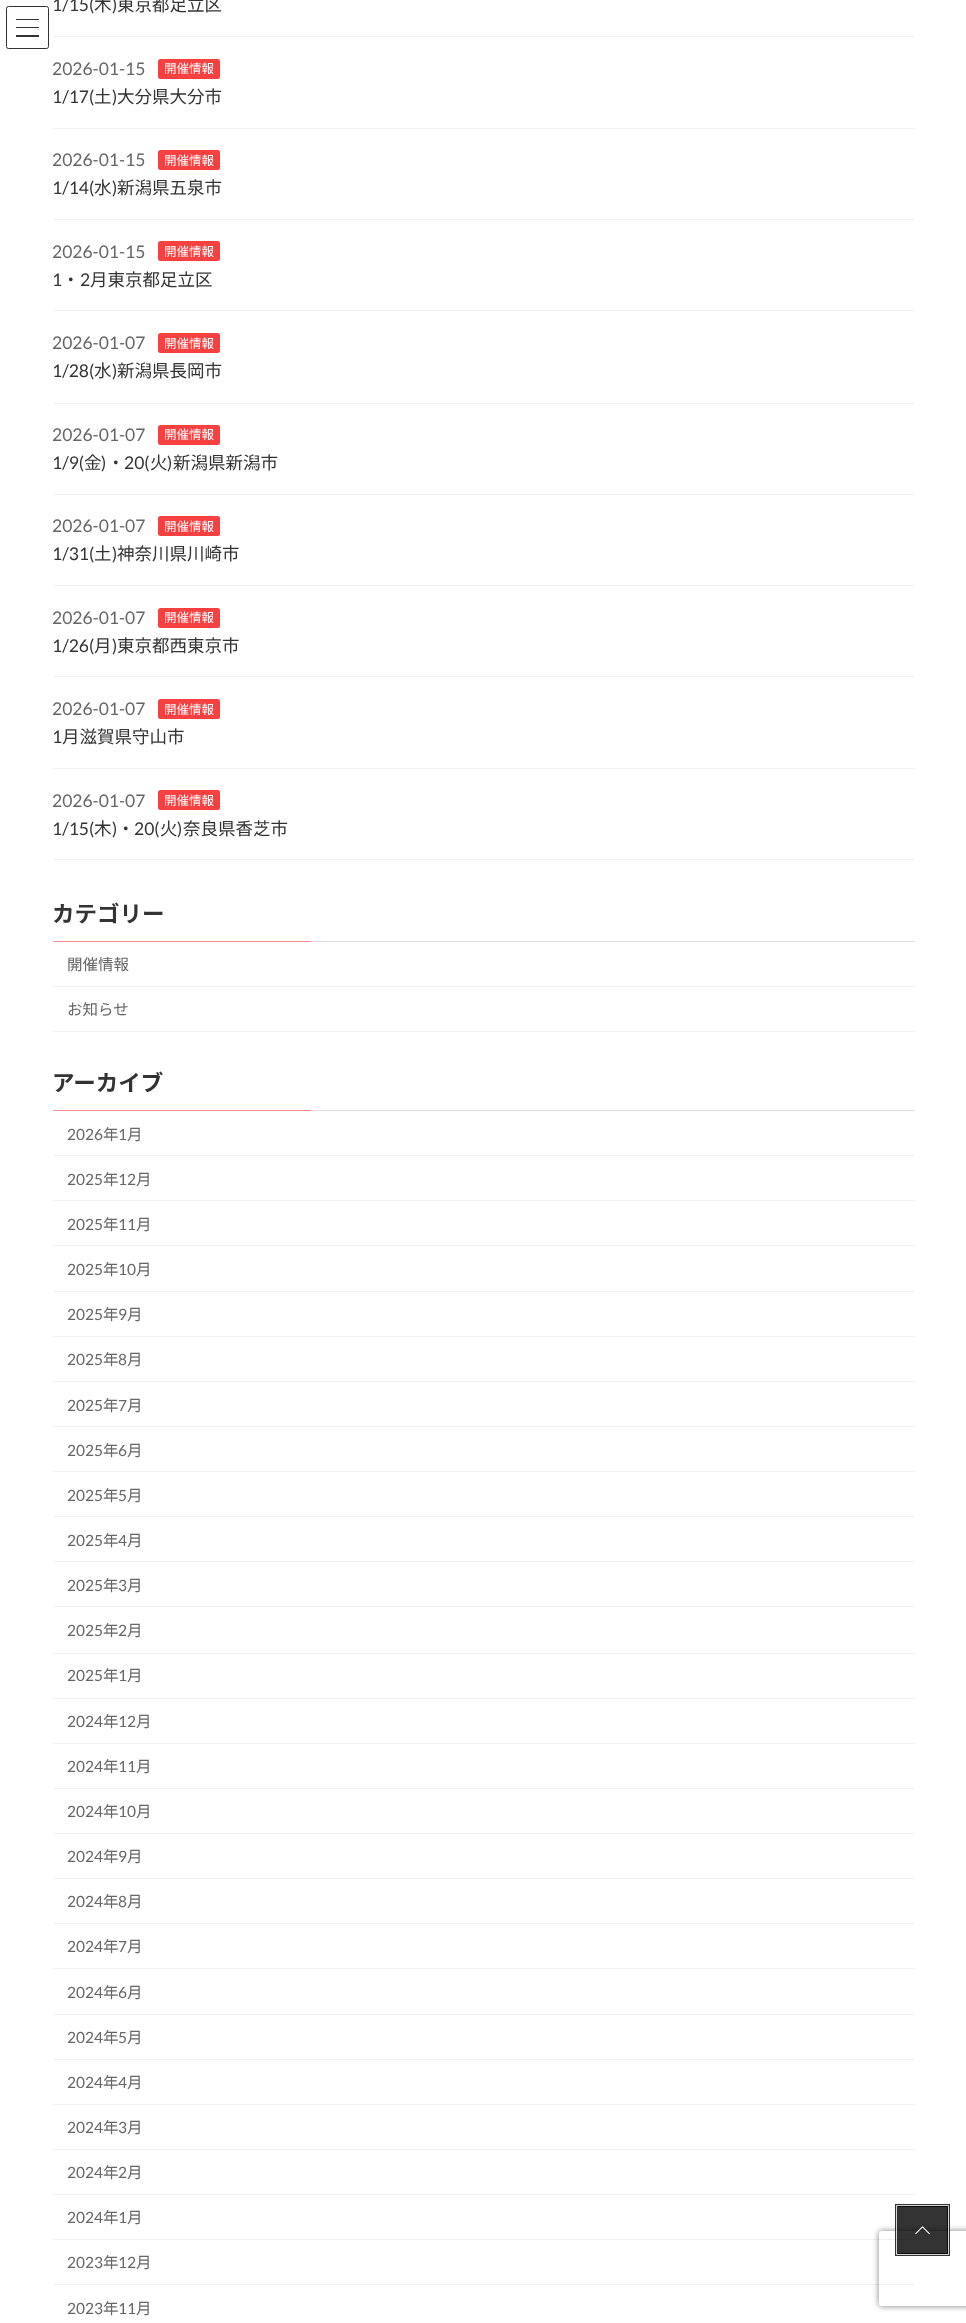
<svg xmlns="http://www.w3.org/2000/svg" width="966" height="2323">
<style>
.a{font:17.5px Lato;fill:#333}
.b{font:17.5px Noto Sans JP;fill:#333}
.c{font:17.5px Lato;fill:#666}
.d{font:12.5px Noto Sans JP;fill:#fff}
.e{font:bold 22.5px Noto Sans JP;fill:#333}
.f{font:15.5px Noto Sans JP;fill:#666}
.g{font:15.5px Lato;fill:#666}
</style>
<defs>
<clipPath id="clip1"><path d="M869 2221h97v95h-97zm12.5 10h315c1.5 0 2.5 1 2.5 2.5v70c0 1.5-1 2.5-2.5 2.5h-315c-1.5 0-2.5-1-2.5-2.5v-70c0-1.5 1-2.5 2.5-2.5z" clip-rule="evenodd"/></clipPath>
</defs>
<rect width="100%" height="100%" fill="#fff"/>
<path fill="#333" d="M16 19h23v1H16z"/>
<path fill="#333" d="M16 27h23v1H16z"/>
<path fill="#333" d="M16 35h23v2H16z"/>
<rect fill="none" stroke="#333" x="6.5" y="6.5" width="42" height="42" rx="2"/>
<path fill="#f0f0f0" d="M53 36h862v1H53z"/>
<path fill="#f0f0f0" d="M53 128h862v1H53z"/>
<rect fill="#f74040" x="158" y="59" width="62" height="20" rx="2.5"/>
<path fill="#f0f0f0" d="M53 219h862v1H53z"/>
<rect fill="#f74040" x="158" y="150" width="62" height="20" rx="2.5"/>
<path fill="#f0f0f0" d="M53 310h862v1H53z"/>
<rect fill="#f74040" x="158" y="241" width="62" height="20" rx="2.5"/>
<path fill="#f0f0f0" d="M53 403h862v1H53z"/>
<rect fill="#f74040" x="158" y="333" width="62" height="20" rx="2.5"/>
<path fill="#f0f0f0" d="M53 494h862v1H53z"/>
<rect fill="#f74040" x="158" y="425" width="62" height="20" rx="2.5"/>
<path fill="#f0f0f0" d="M53 585h862v1H53z"/>
<rect fill="#f74040" x="158" y="516" width="62" height="20" rx="2.5"/>
<path fill="#f0f0f0" d="M53 676h862v1H53z"/>
<rect fill="#f74040" x="158" y="608" width="62" height="20" rx="2.5"/>
<path fill="#f0f0f0" d="M53 768h862v1H53z"/>
<rect fill="#f74040" x="158" y="699" width="62" height="20" rx="2.5"/>
<path fill="#f0f0f0" d="M53 859h862v1H53z"/>
<rect fill="#f74040" x="158" y="790" width="62" height="20" rx="2.5"/>
<path fill="#e0e0e0" d="M311 941h604v1H311z"/>
<path fill="#fc8c8e" d="M53 941h258v1H53z"/>
<path fill="#f0f0f0" d="M53 986h862v1H53z"/>
<path fill="#f0f0f0" d="M53 1031h862v1H53z"/>
<path fill="#e0e0e0" d="M311 1110h604v1H311z"/>
<path fill="#fc8c8e" d="M53 1110h258v1H53z"/>
<path fill="#f0f0f0" d="M53 1155h862v1H53z"/>
<path fill="#f0f0f0" d="M53 1200h862v1H53z"/>
<path fill="#f0f0f0" d="M53 1245h862v1H53z"/>
<path fill="#f0f0f0" d="M53 1291h862v1H53z"/>
<path fill="#f0f0f0" d="M53 1336h862v1H53z"/>
<path fill="#f0f0f0" d="M53 1381h862v1H53z"/>
<path fill="#f0f0f0" d="M53 1426h862v1H53z"/>
<path fill="#f0f0f0" d="M53 1471h862v1H53z"/>
<path fill="#f0f0f0" d="M53 1516h862v1H53z"/>
<path fill="#f0f0f0" d="M53 1561h862v1H53z"/>
<path fill="#f0f0f0" d="M53 1606h862v1H53z"/>
<path fill="#f0f0f0" d="M53 1653h862v1H53z"/>
<path fill="#f0f0f0" d="M53 1698h862v1H53z"/>
<path fill="#f0f0f0" d="M53 1743h862v1H53z"/>
<path fill="#f0f0f0" d="M53 1788h862v1H53z"/>
<path fill="#f0f0f0" d="M53 1833h862v1H53z"/>
<path fill="#f0f0f0" d="M53 1878h862v1H53z"/>
<path fill="#f0f0f0" d="M53 1923h862v1H53z"/>
<path fill="#f0f0f0" d="M53 1968h862v1H53z"/>
<path fill="#f0f0f0" d="M53 2014h862v1H53z"/>
<path fill="#f0f0f0" d="M53 2059h862v1H53z"/>
<path fill="#f0f0f0" d="M53 2104h862v1H53z"/>
<path fill="#f0f0f0" d="M53 2149h862v1H53z"/>
<path fill="#f0f0f0" d="M53 2194h862v1H53z"/>
<path fill="#f0f0f0" d="M53 2239h862v1H53z"/>
<path fill="#f0f0f0" d="M53 2284h862v1H53z"/>
<g clip-path="url(#clip1)">
<rect fill="#808080" filter="blur(3px)" x="879" y="2231" width="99" height="75" rx="2.5"/>
</g>
<path fill="none" stroke="#000000cc" stroke-width="3" d="M896.5 2205.5h52v49H896.5z"/>
<path fill="none" stroke="#ffffffcc" d="M896.5 2205.5h52v49H896.5z"/>
<path fill="#000000cc" d="M898 2206h50v48H898z"/>
<image href="1.png" x="915" y="2226" width="15" height="9"/>
<text class="a" x="52" y="11">1/15(</text>
<text class="b" x="94" y="11">木</text>
<text class="a" x="112" y="11">)</text>
<text class="b" x="117" y="11">東京都足立区</text>
<text class="c" x="52" y="75">2026-01-15</text>
<text class="d" x="164" y="73">開催情報</text>
<text class="a" x="52" y="103">1/17(</text>
<text class="b" x="94" y="103">土</text>
<text class="a" x="112" y="103">)</text>
<text class="b" x="117" y="103">大分県大分市</text>
<text class="c" x="52" y="166">2026-01-15</text>
<text class="d" x="164" y="165">開催情報</text>
<text class="a" x="52" y="194">1/14(</text>
<text class="b" x="94" y="194">水</text>
<text class="a" x="112" y="194">)</text>
<text class="b" x="117" y="194">新潟県五泉市</text>
<text class="c" x="52" y="258">2026-01-15</text>
<text class="d" x="164" y="256">開催情報</text>
<text class="a" x="52" y="286">1</text>
<text class="b" x="62" y="286">・</text>
<text class="a" x="80" y="286">2</text>
<text class="b" x="90" y="286">月東京都足立区</text>
<text class="c" x="52" y="349">2026-01-07</text>
<text class="d" x="164" y="348">開催情報</text>
<text class="a" x="52" y="377">1/28(</text>
<text class="b" x="94" y="377">水</text>
<text class="a" x="112" y="377">)</text>
<text class="b" x="117" y="377">新潟県長岡市</text>
<text class="c" x="52" y="441">2026-01-07</text>
<text class="d" x="164" y="439">開催情報</text>
<text class="a" x="52" y="469">1/9(</text>
<text class="b" x="84" y="469">金</text>
<text class="a" x="101" y="469">)</text>
<text class="b" x="107" y="469">・</text>
<text class="a" x="124" y="469">20(</text>
<text class="b" x="150" y="469">火</text>
<text class="a" x="167" y="469">)</text>
<text class="b" x="173" y="469">新潟県新潟市</text>
<text class="c" x="52" y="532">2026-01-07</text>
<text class="d" x="164" y="531">開催情報</text>
<text class="a" x="52" y="560">1/31(</text>
<text class="b" x="94" y="560">土</text>
<text class="a" x="112" y="560">)</text>
<text class="b" x="117" y="560">神奈川県川崎市</text>
<text class="c" x="52" y="624">2026-01-07</text>
<text class="d" x="164" y="622">開催情報</text>
<text class="a" x="52" y="652">1/26(</text>
<text class="b" x="94" y="652">月</text>
<text class="a" x="112" y="652">)</text>
<text class="b" x="117" y="652">東京都西東京市</text>
<text class="c" x="52" y="715">2026-01-07</text>
<text class="d" x="164" y="714">開催情報</text>
<text class="a" x="52" y="743">1</text>
<text class="b" x="62" y="743">月滋賀県守山市</text>
<text class="c" x="52" y="807">2026-01-07</text>
<text class="d" x="164" y="805">開催情報</text>
<text class="a" x="52" y="835">1/15(</text>
<text class="b" x="94" y="835">木</text>
<text class="a" x="112" y="835">)</text>
<text class="b" x="117" y="835">・</text>
<text class="a" x="134" y="835">20(</text>
<text class="b" x="160" y="835">火</text>
<text class="a" x="177" y="835">)</text>
<text class="b" x="183" y="835">奈良県香芝市</text>
<text class="e" x="52" y="922">カテゴリー</text>
<text class="f" x="67" y="970">開催情報</text>
<text class="f" x="67" y="1015">お知らせ</text>
<text class="e" x="52" y="1091">アーカイブ</text>
<text class="g" x="67" y="1140">2026</text>
<text class="f" x="103" y="1140">年</text>
<text class="g" x="118" y="1140">1</text>
<text class="f" x="127" y="1140">月</text>
<text class="g" x="67" y="1185">2025</text>
<text class="f" x="103" y="1185">年</text>
<text class="g" x="118" y="1185">12</text>
<text class="f" x="136" y="1185">月</text>
<text class="g" x="67" y="1230">2025</text>
<text class="f" x="103" y="1230">年</text>
<text class="g" x="118" y="1230">11</text>
<text class="f" x="136" y="1230">月</text>
<text class="g" x="67" y="1275">2025</text>
<text class="f" x="103" y="1275">年</text>
<text class="g" x="118" y="1275">10</text>
<text class="f" x="136" y="1275">月</text>
<text class="g" x="67" y="1320">2025</text>
<text class="f" x="103" y="1320">年</text>
<text class="g" x="118" y="1320">9</text>
<text class="f" x="127" y="1320">月</text>
<text class="g" x="67" y="1365">2025</text>
<text class="f" x="103" y="1365">年</text>
<text class="g" x="118" y="1365">8</text>
<text class="f" x="127" y="1365">月</text>
<text class="g" x="67" y="1411">2025</text>
<text class="f" x="103" y="1411">年</text>
<text class="g" x="118" y="1411">7</text>
<text class="f" x="127" y="1411">月</text>
<text class="g" x="67" y="1456">2025</text>
<text class="f" x="103" y="1456">年</text>
<text class="g" x="118" y="1456">6</text>
<text class="f" x="127" y="1456">月</text>
<text class="g" x="67" y="1501">2025</text>
<text class="f" x="103" y="1501">年</text>
<text class="g" x="118" y="1501">5</text>
<text class="f" x="127" y="1501">月</text>
<text class="g" x="67" y="1546">2025</text>
<text class="f" x="103" y="1546">年</text>
<text class="g" x="118" y="1546">4</text>
<text class="f" x="127" y="1546">月</text>
<text class="g" x="67" y="1591">2025</text>
<text class="f" x="103" y="1591">年</text>
<text class="g" x="118" y="1591">3</text>
<text class="f" x="127" y="1591">月</text>
<text class="g" x="67" y="1636">2025</text>
<text class="f" x="103" y="1636">年</text>
<text class="g" x="118" y="1636">2</text>
<text class="f" x="127" y="1636">月</text>
<text class="g" x="67" y="1681">2025</text>
<text class="f" x="103" y="1681">年</text>
<text class="g" x="118" y="1681">1</text>
<text class="f" x="127" y="1681">月</text>
<text class="g" x="67" y="1727">2024</text>
<text class="f" x="103" y="1727">年</text>
<text class="g" x="118" y="1727">12</text>
<text class="f" x="136" y="1727">月</text>
<text class="g" x="67" y="1772">2024</text>
<text class="f" x="103" y="1772">年</text>
<text class="g" x="118" y="1772">11</text>
<text class="f" x="136" y="1772">月</text>
<text class="g" x="67" y="1817">2024</text>
<text class="f" x="103" y="1817">年</text>
<text class="g" x="118" y="1817">10</text>
<text class="f" x="136" y="1817">月</text>
<text class="g" x="67" y="1862">2024</text>
<text class="f" x="103" y="1862">年</text>
<text class="g" x="118" y="1862">9</text>
<text class="f" x="127" y="1862">月</text>
<text class="g" x="67" y="1907">2024</text>
<text class="f" x="103" y="1907">年</text>
<text class="g" x="118" y="1907">8</text>
<text class="f" x="127" y="1907">月</text>
<text class="g" x="67" y="1952">2024</text>
<text class="f" x="103" y="1952">年</text>
<text class="g" x="118" y="1952">7</text>
<text class="f" x="127" y="1952">月</text>
<text class="g" x="67" y="1998">2024</text>
<text class="f" x="103" y="1998">年</text>
<text class="g" x="118" y="1998">6</text>
<text class="f" x="127" y="1998">月</text>
<text class="g" x="67" y="2043">2024</text>
<text class="f" x="103" y="2043">年</text>
<text class="g" x="118" y="2043">5</text>
<text class="f" x="127" y="2043">月</text>
<text class="g" x="67" y="2088">2024</text>
<text class="f" x="103" y="2088">年</text>
<text class="g" x="118" y="2088">4</text>
<text class="f" x="127" y="2088">月</text>
<text class="g" x="67" y="2133">2024</text>
<text class="f" x="103" y="2133">年</text>
<text class="g" x="118" y="2133">3</text>
<text class="f" x="127" y="2133">月</text>
<text class="g" x="67" y="2178">2024</text>
<text class="f" x="103" y="2178">年</text>
<text class="g" x="118" y="2178">2</text>
<text class="f" x="127" y="2178">月</text>
<text class="g" x="67" y="2223">2024</text>
<text class="f" x="103" y="2223">年</text>
<text class="g" x="118" y="2223">1</text>
<text class="f" x="127" y="2223">月</text>
<text class="g" x="67" y="2268">2023</text>
<text class="f" x="103" y="2268">年</text>
<text class="g" x="118" y="2268">12</text>
<text class="f" x="136" y="2268">月</text>
<text class="g" x="67" y="2314">2023</text>
<text class="f" x="103" y="2314">年</text>
<text class="g" x="118" y="2314">11</text>
<text class="f" x="136" y="2314">月</text>
</svg>
